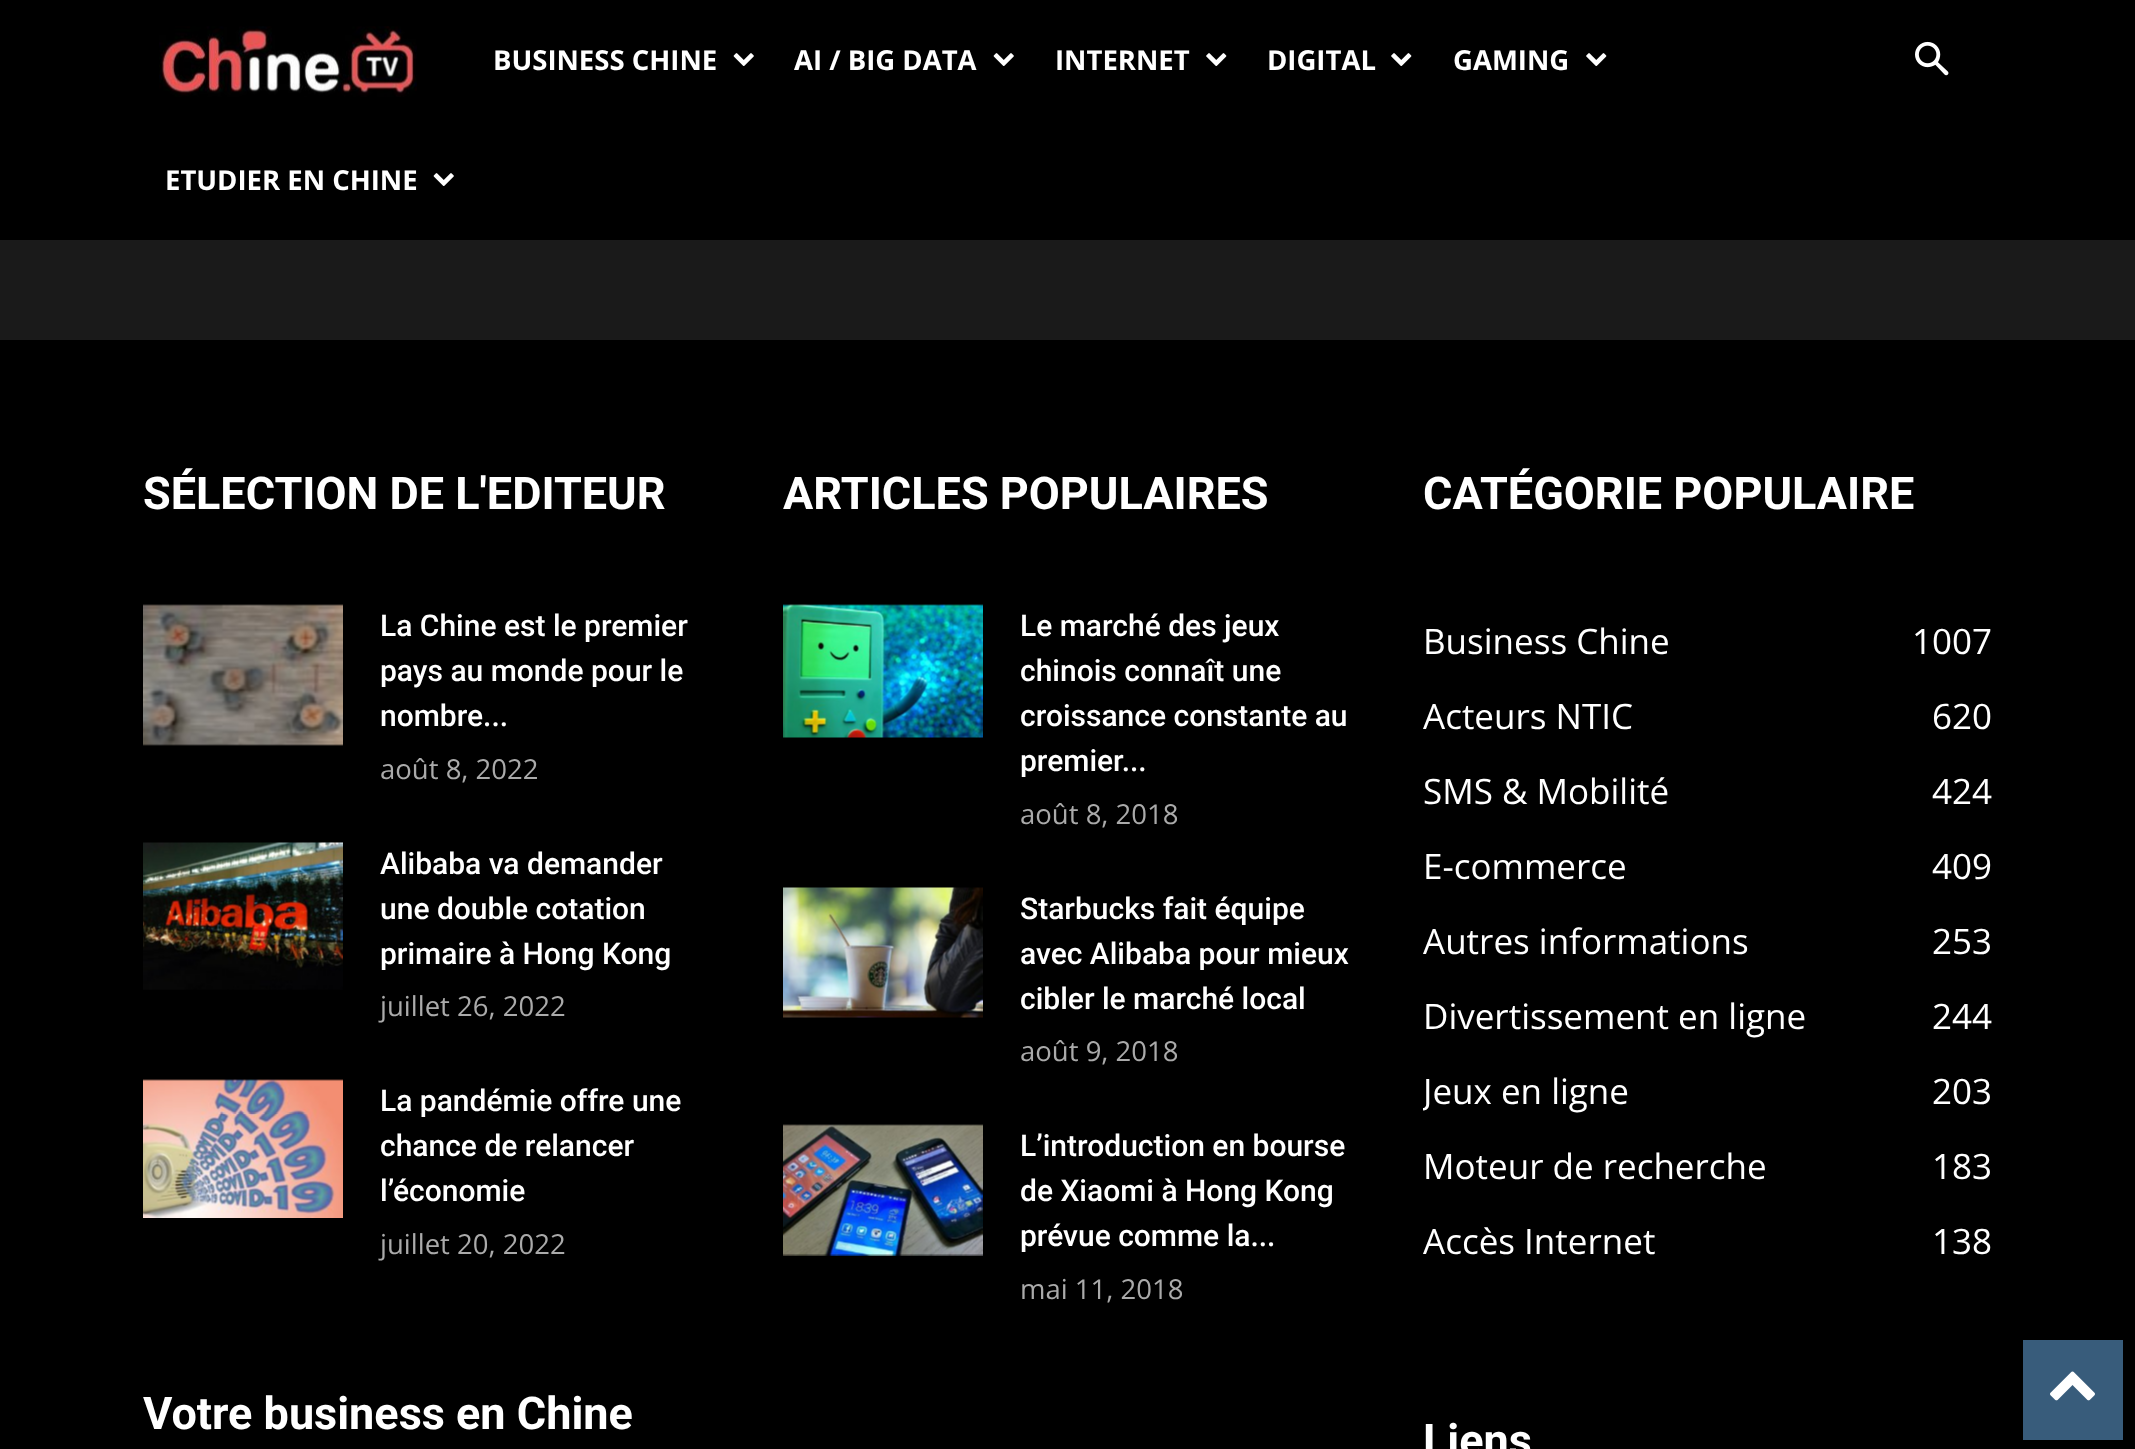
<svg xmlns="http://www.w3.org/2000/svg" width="2135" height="1449">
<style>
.a{font:bold 27.5px Open Sans;fill:#fff}
.b{font:bold 45px Roboto;fill:#fff}
.c{font:500 30px Roboto;fill:#fff}
.d{font:27.5px Open Sans;fill:#aaa}
.e{font:35px Open Sans;fill:#fff}
</style>
<defs>
<clipPath id="clip1"><path d="M1423 453h570v827H1423z"/></clipPath>
</defs>
<rect width="100%" height="100%" fill="#1a1a1a"/>
<path fill="#000" d="M0 0h2135v240H0z"/>
<image href="1.png" x="159" y="26" width="258" height="71"/>
<image href="2.png" x="733" y="53" width="21" height="13"/>
<image href="2.png" x="993" y="53" width="21" height="13"/>
<image href="3.png" x="1206" y="53" width="21" height="13"/>
<image href="3.png" x="1391" y="53" width="21" height="13"/>
<image href="3.png" x="1586" y="53" width="21" height="13"/>
<image href="2.png" x="433" y="173" width="21" height="13"/>
<image href="4.png" x="1915" y="41" width="34" height="35"/>
<path fill="#000" d="M0 340h2135v1109H0z"/>
<image href="5.png" x="143" y="604" width="200" height="142"/>
<image href="6.png" x="143" y="842" width="200" height="148"/>
<image href="7.png" x="143" y="1079" width="200" height="139"/>
<image href="8.png" x="783" y="604" width="200" height="134"/>
<image href="9.png" x="783" y="887" width="200" height="131"/>
<image href="10.png" x="783" y="1124" width="200" height="132"/>
<path fill="#385c7b" d="M2023 1340h100v100H2023z"/>
<image href="11.png" x="2050" y="1371" width="45" height="30"/>
<text class="a" x="493" y="70">BUSINESS CHINE</text>
<text class="a" x="794" y="70">AI / BIG DATA</text>
<text class="a" x="1055" y="70">INTERNET</text>
<text class="a" x="1267" y="70">DIGITAL</text>
<text class="a" x="1453" y="70">GAMING</text>
<text class="a" x="165" y="190">ETUDIER EN CHINE</text>
<text class="b" x="143" y="509">SÉLECTION DE L'EDITEUR</text>
<text class="c" x="380" y="636">La Chine est le premier</text>
<text class="c" x="380" y="681">pays au monde pour le</text>
<text class="c" x="380" y="726">nombre...</text>
<text class="d" x="380" y="779">août 8, 2022</text>
<text class="c" x="380" y="874">Alibaba va demander</text>
<text class="c" x="380" y="919">une double cotation</text>
<text class="c" x="380" y="964">primaire à Hong Kong</text>
<text class="d" x="380" y="1016">juillet 26, 2022</text>
<text class="c" x="380" y="1111">La pandémie offre une</text>
<text class="c" x="380" y="1156">chance de relancer</text>
<text class="c" x="380" y="1201">l’économie</text>
<text class="d" x="380" y="1254">juillet 20, 2022</text>
<text class="b" x="143" y="1429">Votre business en Chine</text>
<text class="b" x="783" y="509">ARTICLES POPULAIRES</text>
<text class="c" x="1020" y="636">Le marché des jeux</text>
<text class="c" x="1020" y="681">chinois connaît une</text>
<text class="c" x="1020" y="726">croissance constante au</text>
<text class="c" x="1020" y="771">premier...</text>
<text class="d" x="1020" y="824">août 8, 2018</text>
<text class="c" x="1020" y="919">Starbucks fait équipe</text>
<text class="c" x="1020" y="964">avec Alibaba pour mieux</text>
<text class="c" x="1020" y="1009">cibler le marché local</text>
<text class="d" x="1020" y="1061">août 9, 2018</text>
<text class="c" x="1020" y="1156">L’introduction en bourse</text>
<text class="c" x="1020" y="1201">de Xiaomi à Hong Kong</text>
<text class="c" x="1020" y="1246">prévue comme la...</text>
<text class="d" x="1020" y="1299">mai 11, 2018</text>
<text class="b" x="1423" y="509">CATÉGORIE POPULAIRE</text>
<text class="e" x="1423" y="654">Business Chine</text>
<text class="e" x="1912" y="654">1007</text>
<text class="e" x="1423" y="729">Acteurs NTIC</text>
<text class="e" x="1932" y="729">620</text>
<text class="e" x="1423" y="804">SMS &amp; Mobilité</text>
<text class="e" x="1932" y="804">424</text>
<text class="e" x="1423" y="879">E-commerce</text>
<text class="e" x="1932" y="879">409</text>
<text class="e" x="1423" y="954">Autres informations</text>
<text class="e" x="1932" y="954">253</text>
<text class="e" x="1423" y="1029">Divertissement en ligne</text>
<text class="e" x="1932" y="1029">244</text>
<g clip-path="url(#clip1)">
<text class="e" x="1423" y="1104">Jeux en ligne</text>
</g>
<text class="e" x="1932" y="1104">203</text>
<text class="e" x="1423" y="1179">Moteur de recherche</text>
<text class="e" x="1932" y="1179">183</text>
<text class="e" x="1423" y="1254">Accès Internet</text>
<text class="e" x="1932" y="1254">138</text>
<text class="b" x="1423" y="1456">Liens</text>
</svg>
